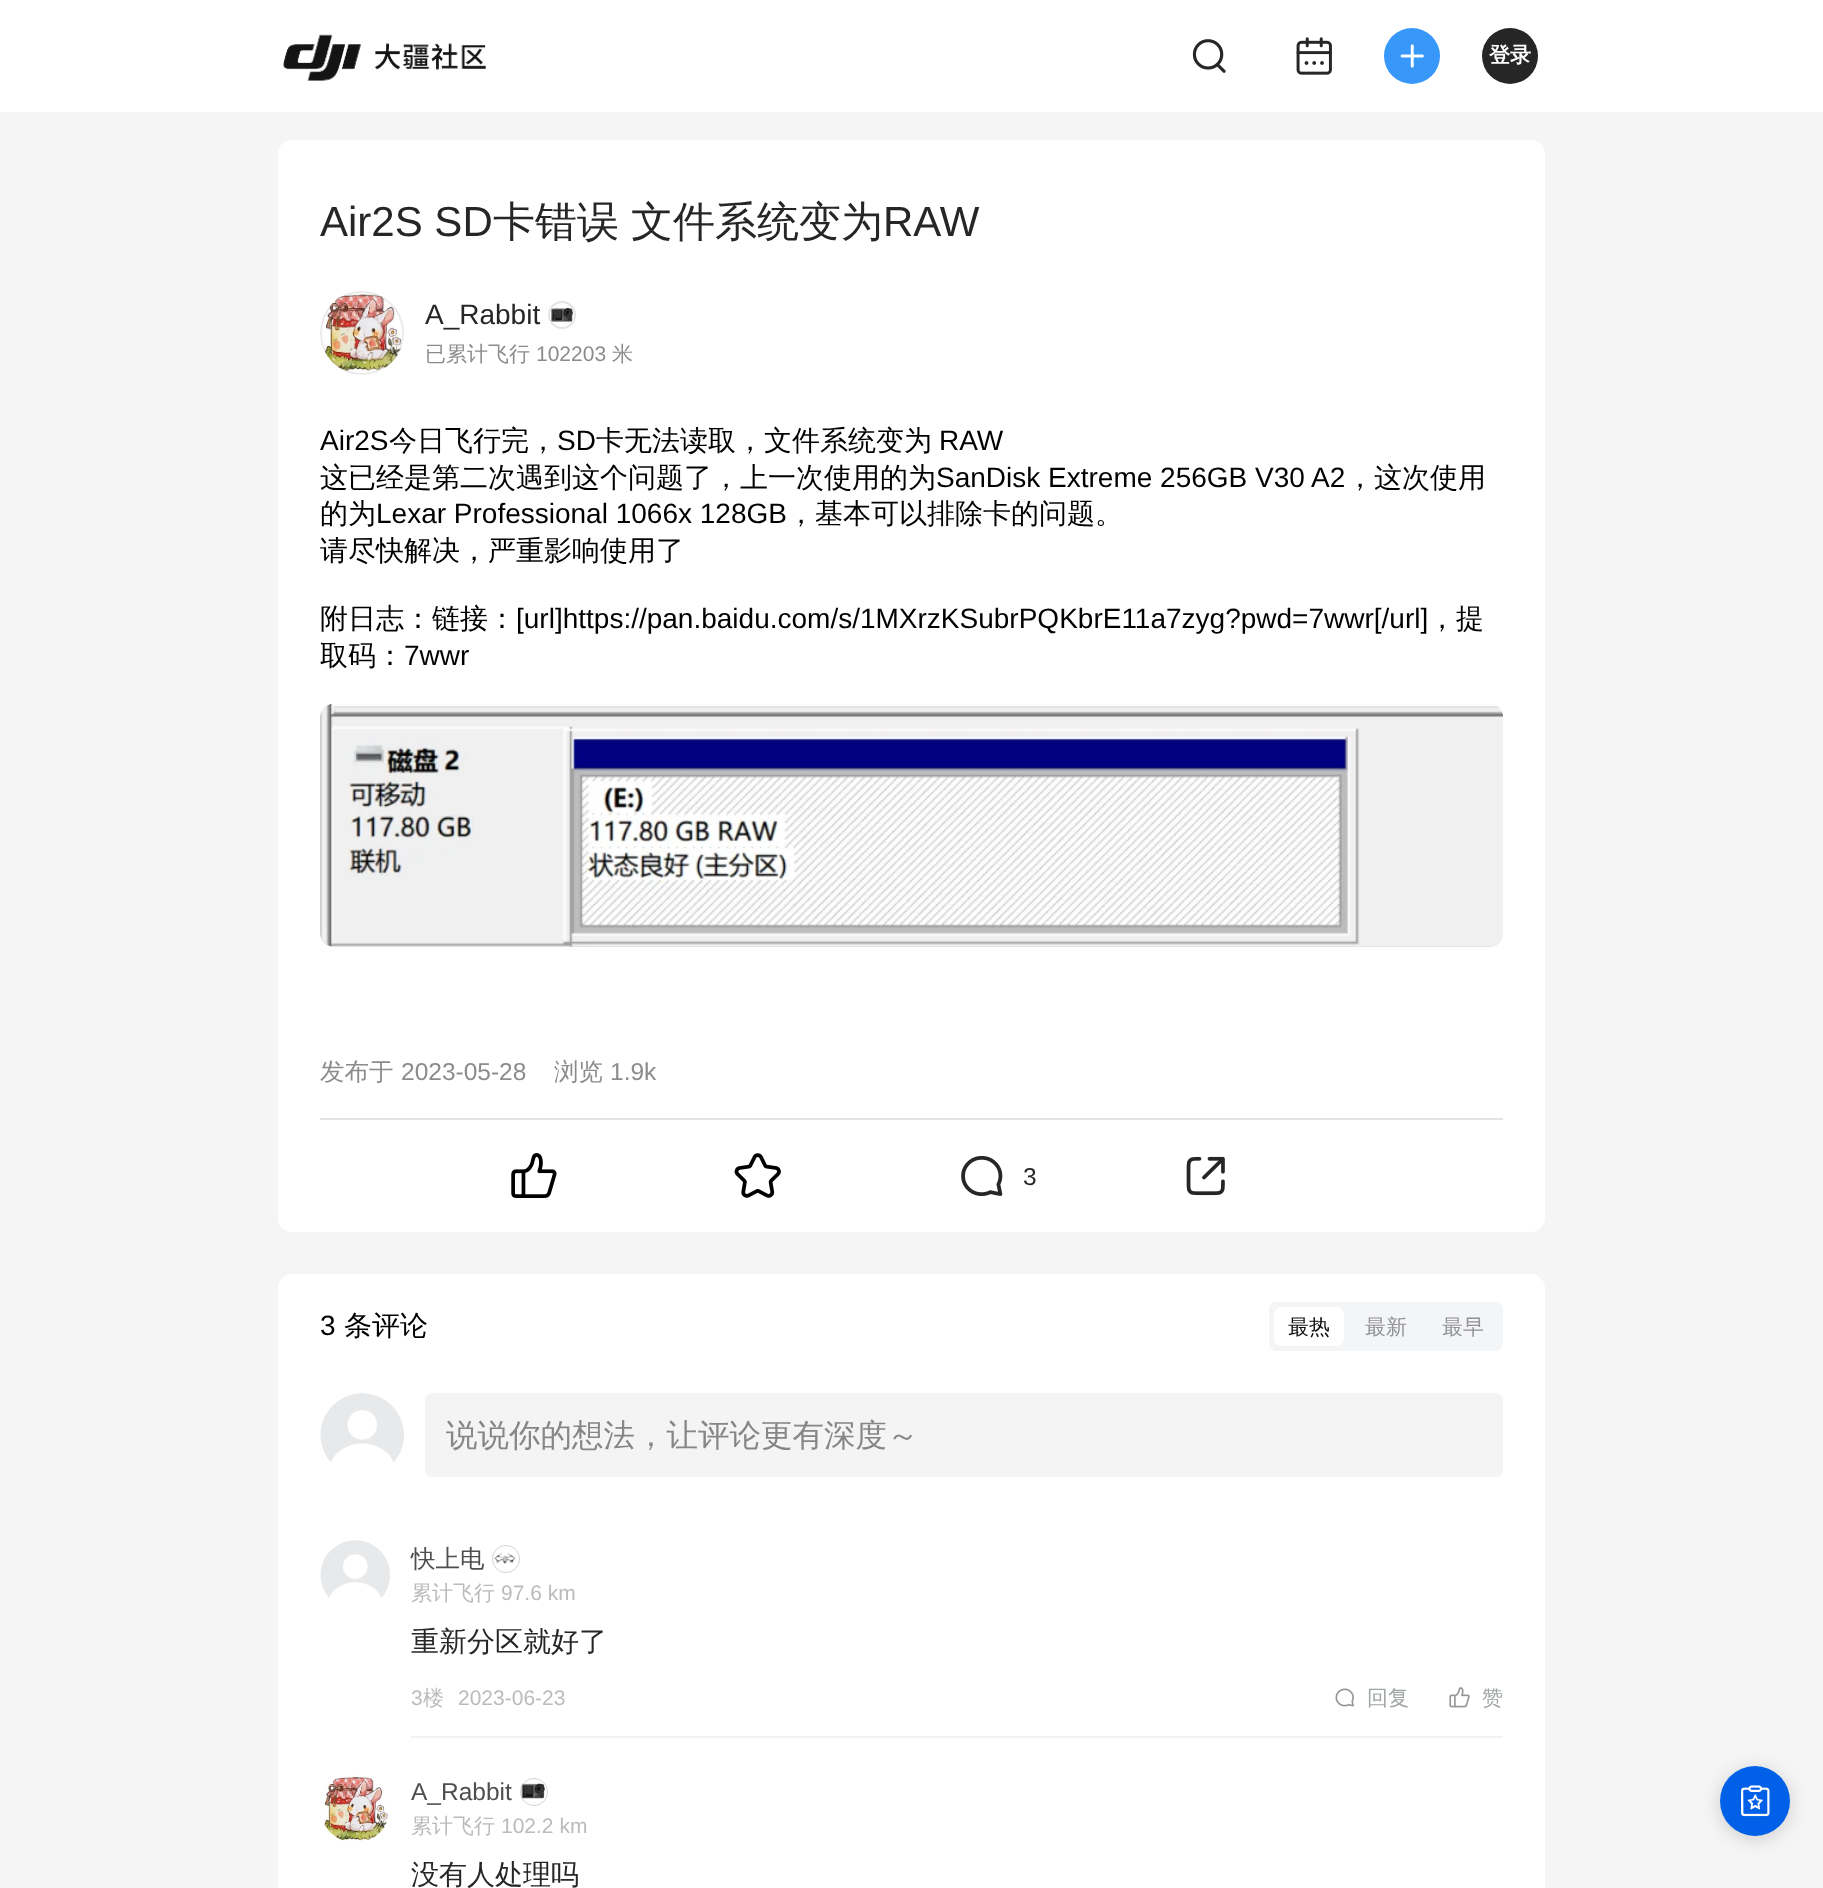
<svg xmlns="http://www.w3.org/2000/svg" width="1823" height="1888">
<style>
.a{font:bold 21px WenQuanYi Zen Hei;fill:#fff}
.b{font:42px Liberation Sans;fill:#262626}
.c{font:500 42px WenQuanYi Zen Hei;fill:#262626}
.d{font:28px Liberation Sans;fill:#262626}
.e{font:500 21px WenQuanYi Zen Hei;fill:#8c8c8c}
.f{font:21px Liberation Sans;fill:#8c8c8c}
.g{font:28px Liberation Sans;fill:#000}
.h{font:500 28px WenQuanYi Zen Hei;fill:#000}
.i{font:500 24.5px WenQuanYi Zen Hei;fill:#8c8c8c}
.j{font:24.5px Liberation Sans;fill:#8c8c8c}
.k{font:24.5px Liberation Sans;fill:#262626}
.l{font:500 21px WenQuanYi Zen Hei;fill:#0c0c0c}
.m{font:500 21px WenQuanYi Zen Hei;fill:#919294}
.n{font:500 31.5px WenQuanYi Zen Hei;fill:#868686}
.o{font:500 24.5px WenQuanYi Zen Hei;fill:#4f4f52}
.p{font:500 21px WenQuanYi Zen Hei;fill:#babbbd}
.q{font:21px Liberation Sans;fill:#babbbd}
.r{font:500 28px WenQuanYi Zen Hei;fill:#262626}
.s{font:500 21px WenQuanYi Zen Hei;fill:#a0a5a5}
.t{font:24.5px Liberation Sans;fill:#4f4f52}
</style>
<rect width="100%" height="100%" fill="#f5f5f5"/>
<path fill="#fff" d="M0 0h1823v112H0z"/>
<image href="1.png" x="283" y="34" width="203" height="47"/>
<image href="2.png" x="1192" y="39" width="34" height="34"/>
<image href="3.png" x="1296" y="37" width="36" height="38"/>
<circle fill="#3798fa" cx="1412" cy="56" r="28"/>
<image href="4.png" x="1400" y="44" width="24" height="24"/>
<circle fill="#262626" cx="1510" cy="56" r="28"/>
<rect fill="#fff" x="278" y="140" width="1267" height="1092" rx="14"/>
<image href="5.png" x="324" y="293" width="78" height="78"/>
<circle fill="none" stroke="#00000014" stroke-width="2" cx="362" cy="333" r="41"/>
<circle fill="none" stroke="#e4e4e4" stroke-width="2" cx="562" cy="315" r="13"/>
<image href="6.png" x="551" y="307" width="22" height="15"/>
<rect fill="#f0f0f0" x="320" y="704" width="1183" height="243" rx="14"/>
<path fill="#00000014" d="M334 704h1155c8 0 14 6 14 14v215c0 8-6 14-14 14h-1155c-8 0-14-6-14-14v-215c0-8 6-14 14-14z"/>
<image href="7.png" x="320" y="704" width="1183" height="243"/>
<path fill="#e4e4e4" d="M320 1118h1183v2H320z"/>
<image href="8.png" x="511" y="1153" width="46" height="45"/>
<image href="9.png" x="734" y="1153" width="47" height="45"/>
<image href="10.png" x="961" y="1156" width="42" height="40"/>
<image href="11.png" x="1186" y="1156" width="39" height="40"/>
<path fill="#fff" d="M292 1274h1239c7.5 0 14 6.5 14 14v600h-1267v-600c0-7.5 6.5-14 14-14z"/>
<rect fill="#f4f5f7" x="1269" y="1302" width="234" height="49" rx="7"/>
<rect fill="#fff" x="1274" y="1307" width="70" height="39" rx="7"/>
<image href="12.png" x="320" y="1393" width="84" height="70"/>
<rect fill="#f4f4f4" x="425" y="1393" width="1078" height="84" rx="7"/>
<image href="13.png" x="320" y="1540" width="70" height="58"/>
<circle fill="none" stroke="#cecece" stroke-width="0.9" cx="506" cy="1559" r="13.55"/>
<image href="14.png" x="494" y="1553" width="22" height="11"/>
<image href="15.png" x="1335" y="1688" width="19" height="19"/>
<image href="16.png" x="1449" y="1687" width="21" height="21"/>
<path fill="#f0f2f5" d="M411 1736h1092v2H411z"/>
<image href="17.png" x="323" y="1775" width="65" height="66"/>
<circle fill="none" stroke="#cecece" stroke-width="0.9" cx="534" cy="1792" r="13.55"/>
<image href="18.png" x="521" y="1783" width="24" height="16"/>
<rect fill="#00000029" filter="blur(9px)" x="1720" y="1769" width="70" height="70" rx="35"/>
<circle fill="#0060e7" cx="1755" cy="1801" r="35"/>
<image href="19.png" x="1741" y="1785" width="29" height="32"/>
<text class="a" x="1489" y="62">登录</text>
<text class="b" x="320" y="236">Air2S SD</text>
<text class="c" x="493" y="236">卡错误</text>
<text class="c" x="631" y="236">文件系统变为</text>
<text class="b" x="883" y="236">RAW</text>
<text class="d" x="425" y="324">A_Rabbit</text>
<text class="e" x="425" y="361">已累计飞行</text>
<text class="f" x="536" y="361">102203</text>
<text class="e" x="612" y="361">米</text>
<text class="g" x="320" y="450">Air2S</text>
<text class="h" x="389" y="450">今日飞行完，</text>
<text class="g" x="557" y="450">SD</text>
<text class="h" x="596" y="450">卡无法读取，文件系统变为</text>
<text class="g" x="939" y="450">RAW</text>
<text class="h" x="320" y="487">这已经是第二次遇到这个问题了，上一次使用的为</text>
<text class="g" x="936" y="487">SanDisk Extreme 256GB V30 A2</text>
<text class="h" x="1346" y="487">，这次使用</text>
<text class="h" x="320" y="523">的为</text>
<text class="g" x="376" y="523">Lexar Professional 1066x 128GB</text>
<text class="h" x="787" y="523">，基本可以排除卡的问题。</text>
<text class="h" x="320" y="560">请尽快解决，严重影响使用了</text>
<text class="h" x="320" y="628">附日志：链接：</text>
<text class="g" x="516" y="628">[url]https://pan.baidu.com/s/1MXrzKSubrPQKbrE11a7zyg?pwd=7wwr[/url]</text>
<text class="h" x="1428" y="628">，提</text>
<text class="h" x="320" y="665">取码：</text>
<text class="g" x="404" y="665">7wwr</text>
<text class="i" x="320" y="1080">发布于</text>
<text class="j" x="401" y="1080">2023-05-28</text>
<text class="i" x="554" y="1080">浏览</text>
<text class="j" x="610" y="1080">1.9k</text>
<text class="k" x="1023" y="1185">3</text>
<text class="g" x="320" y="1335">3</text>
<text class="h" x="344" y="1335">条评论</text>
<text class="l" x="1288" y="1334">最热</text>
<text class="m" x="1365" y="1334">最新</text>
<text class="m" x="1442" y="1334">最早</text>
<text class="n" x="446" y="1446">说说你的想法，让评论更有深度～</text>
<text class="o" x="411" y="1567">快上电</text>
<text class="p" x="411" y="1600">累计飞行</text>
<text class="q" x="501" y="1600">97.6 km</text>
<text class="r" x="411" y="1651">重新分区就好了</text>
<text class="q" x="411" y="1705">3</text>
<text class="p" x="423" y="1705">楼</text>
<text class="q" x="458" y="1705">2023-06-23</text>
<text class="s" x="1367" y="1705">回复</text>
<text class="s" x="1482" y="1705">赞</text>
<text class="t" x="411" y="1800">A_Rabbit</text>
<text class="p" x="411" y="1833">累计飞行</text>
<text class="q" x="501" y="1833">102.2 km</text>
<text class="r" x="411" y="1884">没有人处理吗</text>
</svg>
